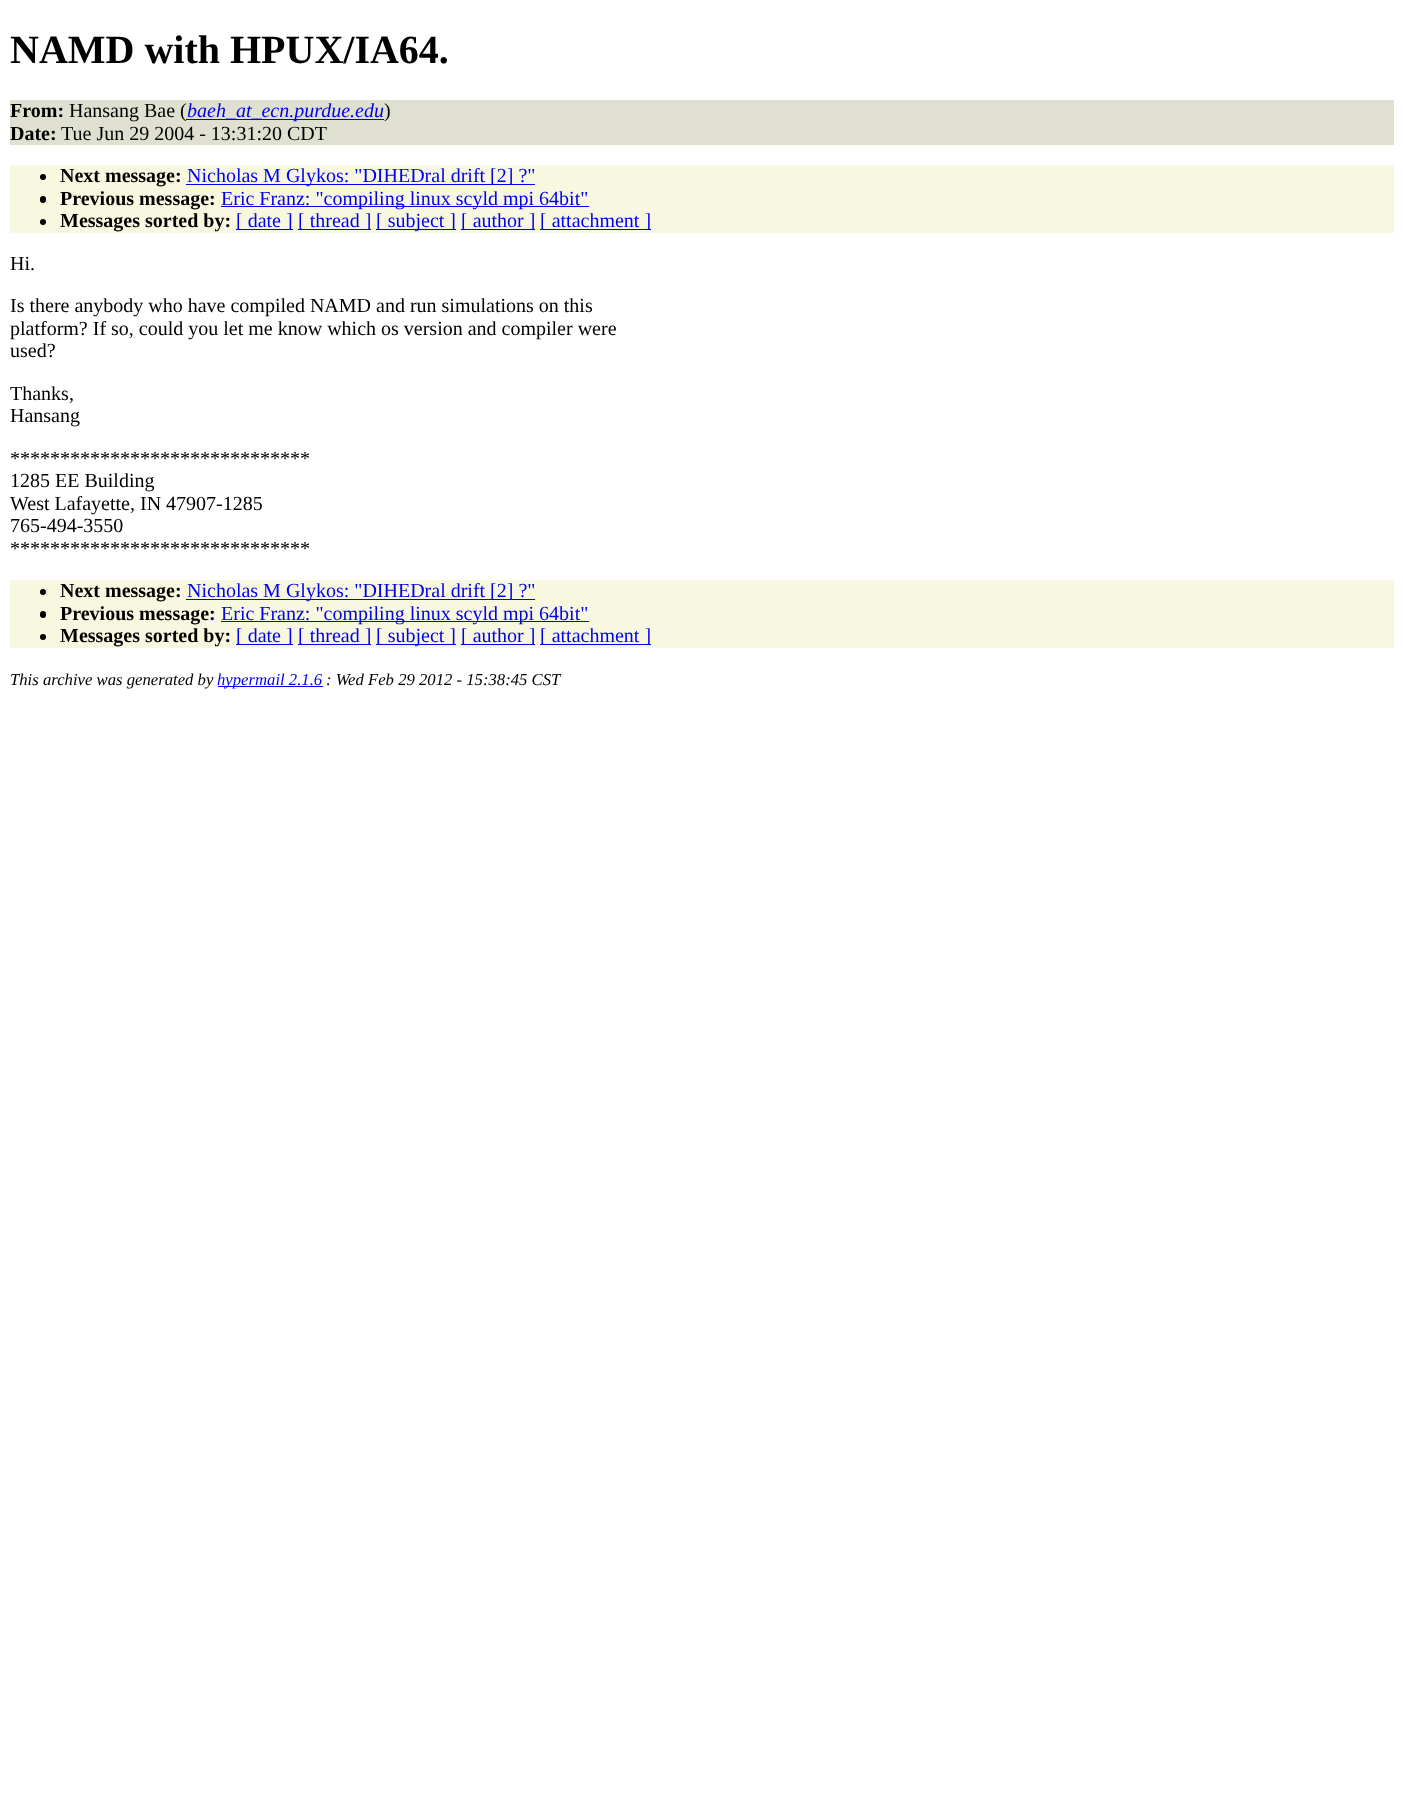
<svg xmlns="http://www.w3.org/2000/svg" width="1403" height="1816">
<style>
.a{font:bold 40px Liberation Serif;fill:#000}
.b{font:bold 20px Liberation Serif;fill:#000}
.c{font:20px Liberation Serif;fill:#000}
.d{font:italic 20px Liberation Serif;fill:#00e}
.e{font:20px Liberation Serif;fill:#00e}
.f{font:italic 16.7px Liberation Serif;fill:#000}
.g{font:italic 16.7px Liberation Serif;fill:#00e}
</style>
<rect width="100%" height="100%" fill="#fff"/>
<path fill="#e0e0d0" d="M10 100h1384v45H10z"/>
<path fill="#f8f8e0" d="M10 165h1384v68H10z"/>
<circle fill="#000" cx="43" cy="177" r="3"/>
<path fill="#00e" d="M186 184h349v1H186z"/>
<rect fill="#000" x="40" y="196" width="6" height="7" rx="3"/>
<path fill="#00e" d="M221 206h368v1H221z"/>
<circle fill="#000" cx="43" cy="222" r="3"/>
<path fill="#00e" d="M236 229h57v1H236z"/>
<path fill="#00e" d="M298 229h73v1H298z"/>
<path fill="#00e" d="M376 229h80v1H376z"/>
<path fill="#00e" d="M461 229h74v1H461z"/>
<path fill="#00e" d="M540 229h111v1H540z"/>
<path fill="#f8f8e0" d="M10 580h1384v68H10z"/>
<circle fill="#000" cx="43" cy="592" r="3"/>
<path fill="#00e" d="M186 599h349v1H186z"/>
<rect fill="#000" x="40" y="611" width="6" height="7" rx="3"/>
<path fill="#00e" d="M221 621h368v1H221z"/>
<circle fill="#000" cx="43" cy="637" r="3"/>
<path fill="#00e" d="M236 644h57v1H236z"/>
<path fill="#00e" d="M298 644h73v1H298z"/>
<path fill="#00e" d="M376 644h80v1H376z"/>
<path fill="#00e" d="M461 644h74v1H461z"/>
<path fill="#00e" d="M540 644h111v1H540z"/>
<path fill="#00e" d="M218 686h105v1H218z"/>
<text class="a" x="10" y="63">NAMD with HPUX/IA64.</text>
<text class="b" x="10" y="117">From:</text>
<text class="c" x="69" y="117">Hansang Bae (</text>
<path fill="#00e" d="M186 119h198v1H186z"/>
<text class="d" x="187" y="117">baeh_at_ecn.purdue.edu</text>
<text class="c" x="384" y="117">)</text>
<text class="b" x="10" y="140">Date:</text>
<text class="c" x="61" y="140">Tue Jun 29 2004 - 13:31:20 CDT</text>
<text class="b" x="60" y="182">Next message:</text>
<text class="e" x="187" y="182">Nicholas M Glykos: "DIHEDral drift [2] ?"</text>
<text class="b" x="60" y="205">Previous message:</text>
<text class="e" x="221" y="205">Eric Franz: "compiling linux scyld mpi 64bit"</text>
<text class="b" x="60" y="227">Messages sorted by:</text>
<text class="e" x="236" y="227">[ date ]</text>
<text class="e" x="298" y="227">[ thread ]</text>
<text class="e" x="376" y="227">[ subject ]</text>
<text class="e" x="461" y="227">[ author ]</text>
<text class="e" x="540" y="227">[ attachment ]</text>
<text class="c" x="10" y="270">Hi.</text>
<text class="c" x="10" y="312">Is there anybody who have compiled NAMD and run simulations on this</text>
<text class="c" x="10" y="335">platform? If so, could you let me know which os version and compiler were</text>
<text class="c" x="10" y="357">used?</text>
<text class="c" x="10" y="400">Thanks,</text>
<text class="c" x="10" y="422">Hansang</text>
<text class="c" x="10" y="465">******************************</text>
<text class="c" x="10" y="487">1285 EE Building</text>
<text class="c" x="10" y="510">West Lafayette, IN 47907-1285</text>
<text class="c" x="10" y="532">765-494-3550</text>
<text class="c" x="10" y="555">******************************</text>
<text class="b" x="60" y="597">Next message:</text>
<text class="e" x="187" y="597">Nicholas M Glykos: "DIHEDral drift [2] ?"</text>
<text class="b" x="60" y="620">Previous message:</text>
<text class="e" x="221" y="620">Eric Franz: "compiling linux scyld mpi 64bit"</text>
<text class="b" x="60" y="642">Messages sorted by:</text>
<text class="e" x="236" y="642">[ date ]</text>
<text class="e" x="298" y="642">[ thread ]</text>
<text class="e" x="376" y="642">[ subject ]</text>
<text class="e" x="461" y="642">[ author ]</text>
<text class="e" x="540" y="642">[ attachment ]</text>
<text class="f" x="10" y="685">This archive was generated by</text>
<text class="g" x="217" y="685">hypermail 2.1.6</text>
<text class="f" x="326" y="685">: Wed Feb 29 2012 - 15:38:45 CST</text>
</svg>
